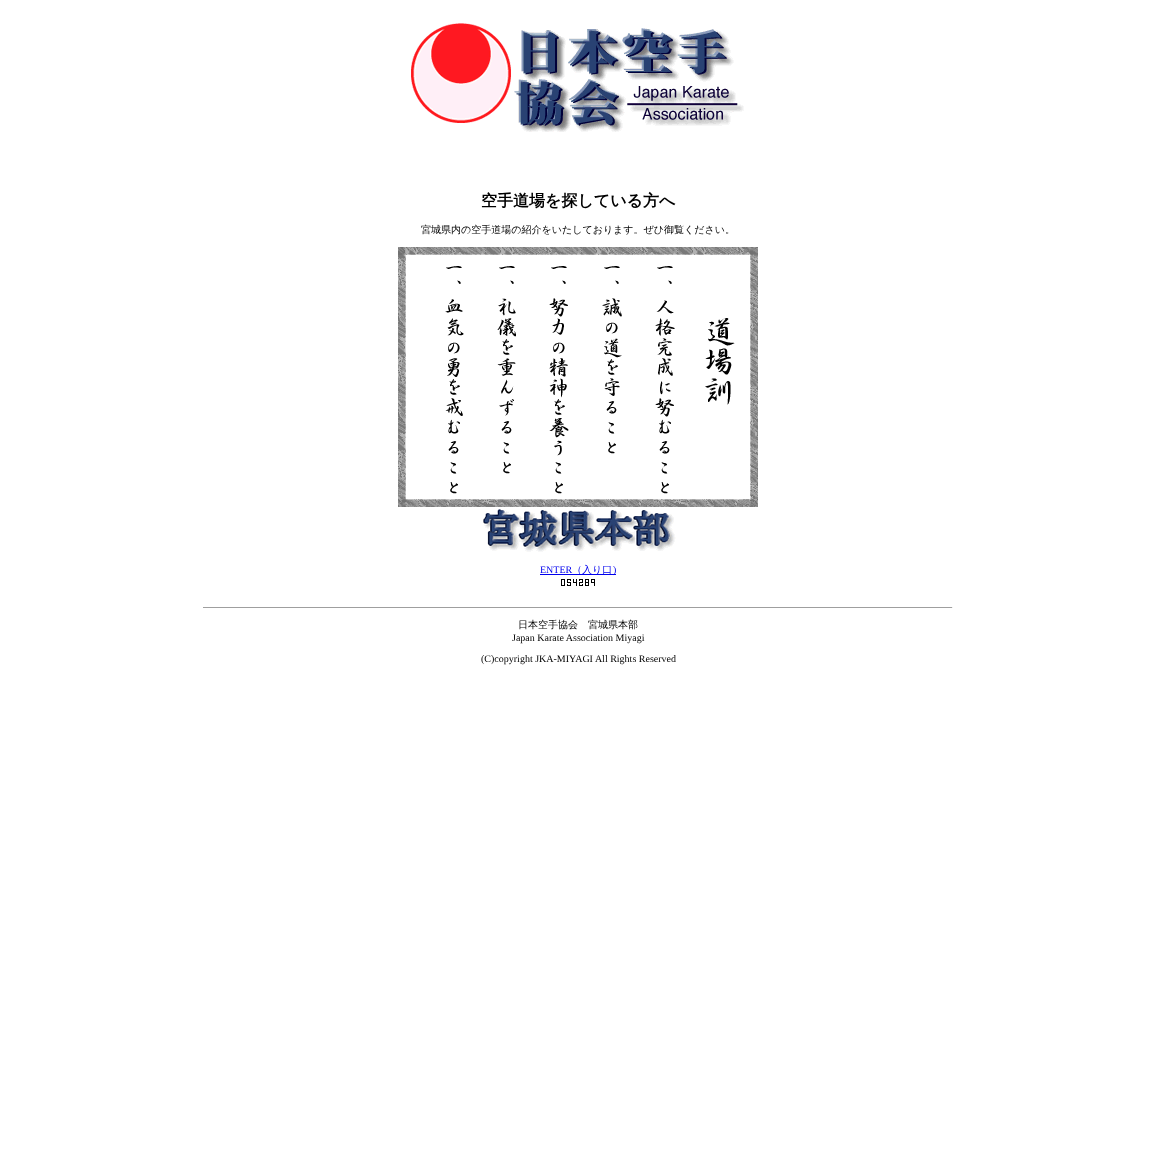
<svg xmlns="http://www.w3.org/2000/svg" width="1156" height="1167">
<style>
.a{font:bold 16px WenQuanYi Zen Hei;fill:#000}
.b{font:500 10px WenQuanYi Zen Hei;fill:#000}
.c{font:10px Liberation Serif;fill:#00e}
.d{font:500 10px WenQuanYi Zen Hei;fill:#00e}
.e{font:10px Liberation Serif;fill:#000}
</style>
<rect width="100%" height="100%" fill="#fff"/>
<image href="1.png" x="411" y="23" width="100" height="100"/>
<image href="2.png" x="514" y="28" width="230" height="104"/>
<image href="3.png" x="398" y="247" width="360" height="260"/>
<image href="4.png" x="483" y="509" width="193" height="43"/>
<path fill="#00e" d="M540 574h76v1H540z"/>
<image href="5.png" x="561" y="579" width="34" height="7"/>
<path fill="#9f9f9f" d="M203 607h750v1H203z"/>
<path fill="#eee" d="M952 607h1v1H952z"/>
<text class="a" x="481" y="206">空手道場を探している方へ</text>
<text class="b" x="421" y="233">宮城県内の空手道場の紹介をいたしております。ぜひ御覧ください。</text>
<text class="c" x="540" y="573">ENTER</text>
<text class="d" x="572" y="573">（入り口</text>
<text class="c" x="613" y="573">)</text>
<text class="b" x="518" y="628">日本空手協会　宮城県本部</text>
<text class="e" x="512" y="641">Japan Karate Association Miyagi</text>
<text class="e" x="481" y="662">(C)copyright JKA-MIYAGI All Rights Reserved</text>
</svg>
